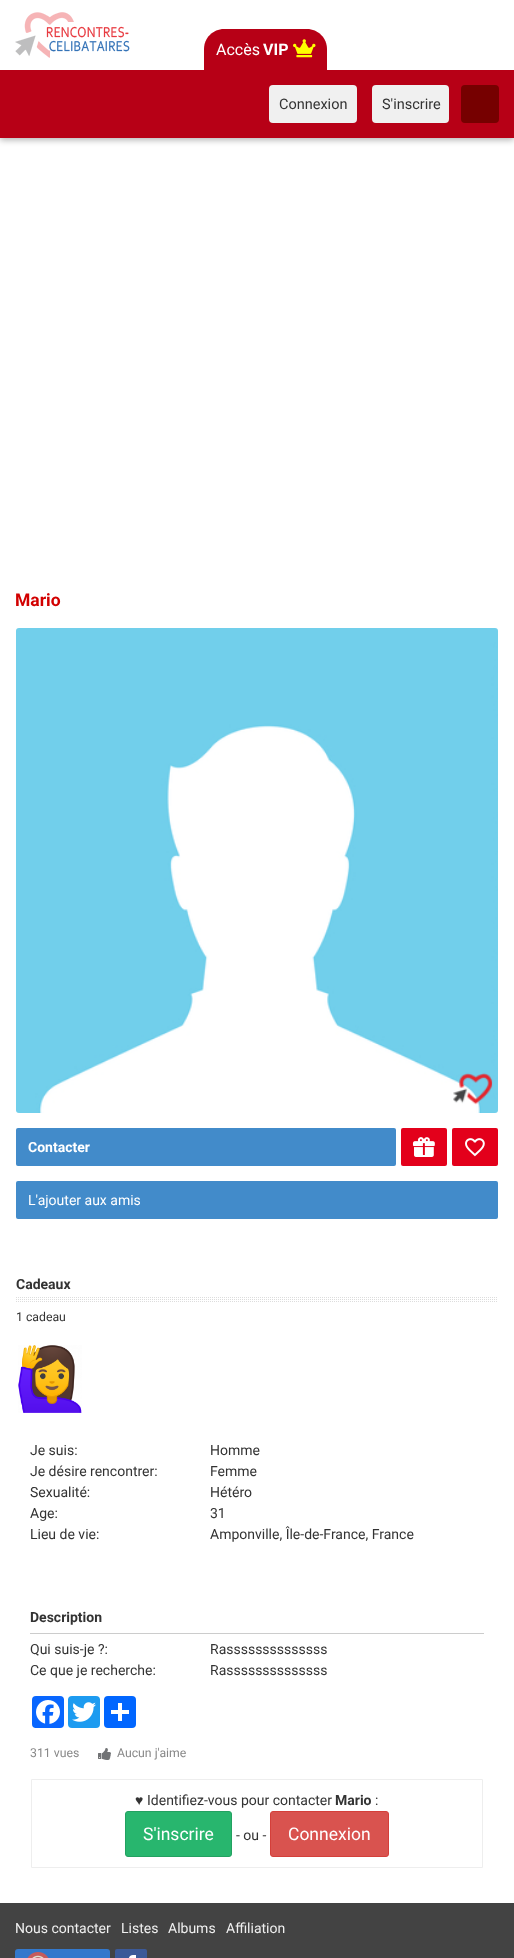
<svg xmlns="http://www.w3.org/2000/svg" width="514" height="1958">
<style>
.a{font:16px Roboto;fill:#fff}
.b{font:bold 16px Roboto;fill:#fff}
.c{font:14.5px Roboto;fill:#333}
.d{font:bold 17.5px Roboto;fill:#d20000}
.e{font:bold 14px Roboto;fill:#fff}
.f{font:14px Roboto;fill:#fff}
.g{font:bold 14px Roboto;fill:#333}
.h{font:12.25px Roboto;fill:#333}
.i{font:14px Roboto;fill:#333}
.j{font:12.25px Roboto;fill:#888}
.k{font:14px Liberation Sans;fill:#333}
.l{font:17.5px Roboto;fill:#fff}
.m{font:14px Roboto;fill:#efefef}
</style>
<rect width="100%" height="100%" fill="#fff"/>
<path fill="#0000004d" filter="blur(3px)" d="M0 2h514v138H0z"/>
<path fill="#fff" d="M0 0h514v70H0z"/>
<image href="1.png" x="15" y="12" width="115" height="46"/>
<path fill="#b70016" d="M224 29h83c11 0 20 9 20 20v21h-123v-21c0-11 9-20 20-20z"/>
<image href="2.png" x="293" y="39" width="23" height="19"/>
<path fill="#b70016" d="M0 70h514v68H0z"/>
<rect fill="#f0f0f0" x="269" y="85" width="88" height="38" rx="4"/>
<rect fill="#f0f0f0" x="372" y="85" width="77" height="38" rx="4"/>
<rect fill="#760000" x="461" y="85" width="38" height="38" rx="4"/>
<image href="3.png" x="16" y="628" width="482" height="485"/>
<rect fill="#428bca" x="16" y="1128" width="380" height="38" rx="2"/>
<rect fill="#e3001b" x="401" y="1128" width="46" height="38" rx="2"/>
<image href="4.png" x="412" y="1137" width="23" height="20"/>
<rect fill="#e3001b" x="452" y="1128" width="46" height="38" rx="2"/>
<image href="5.png" x="465" y="1138" width="20" height="19"/>
<rect fill="#428bca" x="16" y="1181" width="482" height="38" rx="2"/>
<image href="6.png" x="16" y="1297" width="481" height="5"/>
<image href="7.png" x="18" y="1345" width="64" height="68"/>
<path fill="#ccc" d="M30 1633h454v1H30z"/>
<rect fill="#0866ff" x="32" y="1696" width="32" height="32" rx="4"/>
<image href="8.png" x="36" y="1700" width="24" height="24"/>
<rect fill="#1d9bf0" x="68" y="1696" width="32" height="32" rx="4"/>
<image href="9.png" x="72" y="1702" width="24" height="20"/>
<rect fill="#0166ff" x="104" y="1696" width="32" height="32" rx="4"/>
<path fill="#fff" d="M118 1703h4v18H118z"/>
<path fill="#fff" d="M111 1710h18v4H111z"/>
<image href="10.png" x="98" y="1748" width="13" height="12"/>
<path fill="none" stroke="#eee" d="M31.5 1779.5h451v88H31.5z"/>
<rect fill="#28b66e" stroke="#23a161" x="125.5" y="1811.5" width="106" height="45" rx="2.5"/>
<rect fill="#d9534f" stroke="#d43f3a" x="270.5" y="1811.5" width="118" height="45" rx="2.5"/>
<path fill="#434343" d="M0 1903h514v55H0z"/>
<rect fill="#3378cc" x="15" y="1949" width="95" height="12" rx="3"/>
<image href="11.png" x="27" y="1952" width="22" height="6"/>
<rect fill="#3b5998" x="115" y="1949" width="32" height="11" rx="2"/>
<image href="12.png" x="129" y="1955" width="7" height="3"/>
<text class="a" x="216" y="55">Accès</text>
<text class="b" x="263" y="55">VIP</text>
<text class="c" x="279" y="109">Connexion</text>
<text class="c" x="382" y="109">S'inscrire</text>
<text class="d" x="15" y="606">Mario</text>
<text class="e" x="28" y="1152">Contacter</text>
<text class="f" x="28" y="1205">L'ajouter aux amis</text>
<text class="g" x="16" y="1289">Cadeaux</text>
<text class="h" x="16" y="1321">1 cadeau</text>
<text class="i" x="30" y="1455">Je suis:</text>
<text class="i" x="210" y="1455">Homme</text>
<text class="i" x="30" y="1476">Je désire rencontrer:</text>
<text class="i" x="210" y="1476">Femme</text>
<text class="i" x="30" y="1497">Sexualité:</text>
<text class="i" x="210" y="1497">Hétéro</text>
<text class="i" x="30" y="1518">Age:</text>
<text class="i" x="210" y="1518">31</text>
<text class="i" x="30" y="1539">Lieu de vie:</text>
<text class="i" x="210" y="1539">Amponville, Île-de-France, France</text>
<text class="g" x="30" y="1622">Description</text>
<text class="i" x="30" y="1654">Qui suis-je ?:</text>
<text class="i" x="210" y="1654">Rassssssssssssss</text>
<text class="i" x="30" y="1675">Ce que je recherche:</text>
<text class="i" x="210" y="1675">Rassssssssssssss</text>
<text class="j" x="30" y="1757">311 vues</text>
<text class="j" x="117" y="1757">Aucun j'aime</text>
<text class="k" x="135" y="1805">♥</text>
<text class="i" x="147" y="1805">Identifiez-vous pour contacter</text>
<text class="g" x="335" y="1805">Mario</text>
<text class="i" x="375" y="1805">:</text>
<text class="l" x="143" y="1840">S'inscrire</text>
<text class="i" x="236" y="1840">- ou -</text>
<text class="l" x="288" y="1840">Connexion</text>
<text class="m" x="15" y="1933">Nous contacter</text>
<text class="m" x="121" y="1933">Listes</text>
<text class="m" x="168" y="1933">Albums</text>
<text class="m" x="226" y="1933">Affiliation</text>
</svg>
